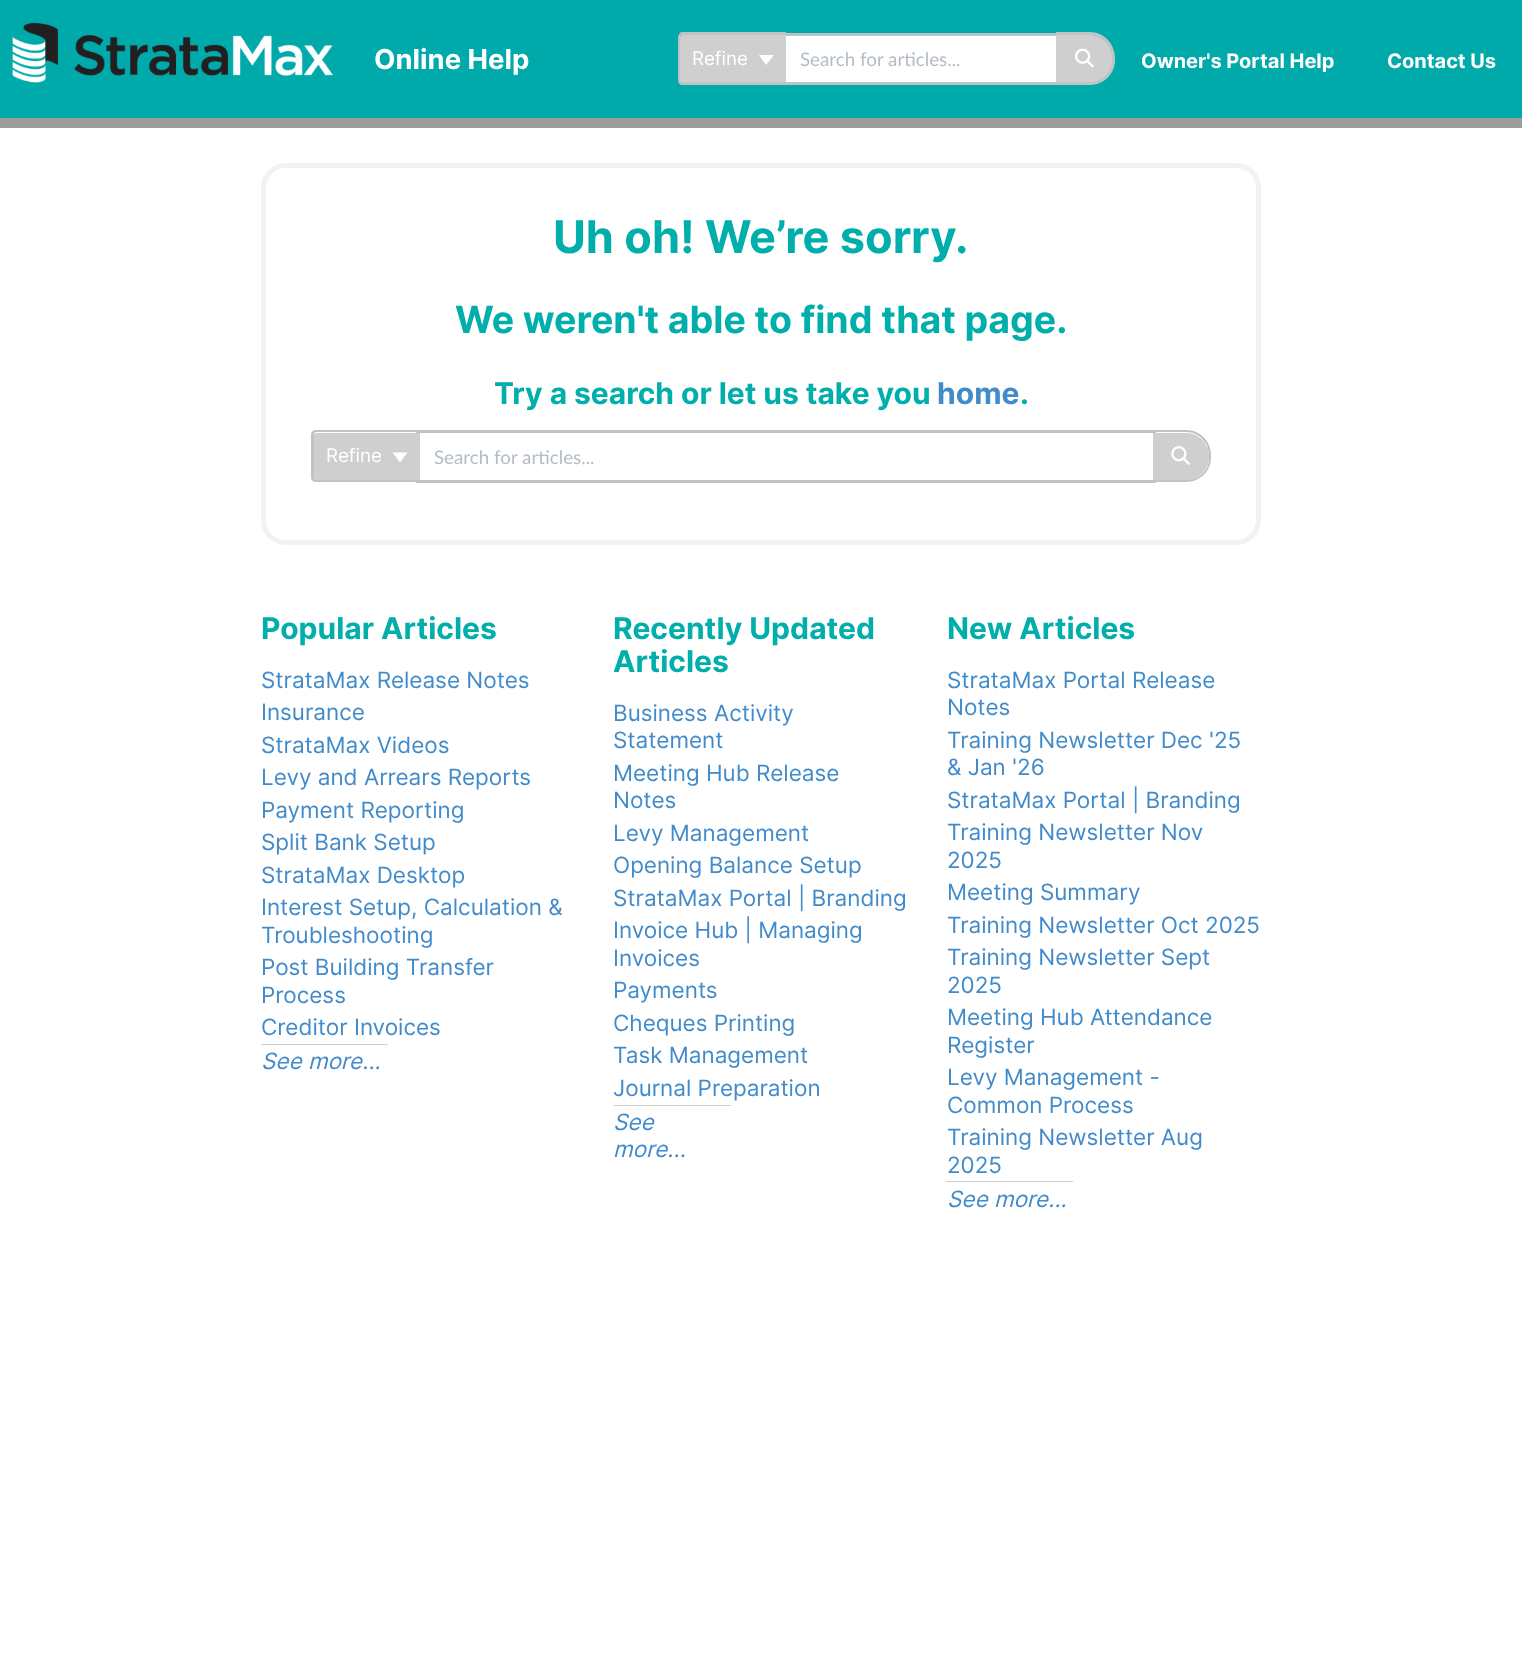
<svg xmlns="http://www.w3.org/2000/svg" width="1522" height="1660">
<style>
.a{font:bold 27.5px Inter;fill:#fff}
.b{font:18.75px Inter;fill:#fff}
.c{font:18.75px Lato;fill:#b2bcc5}
.d{font:bold 20px Inter;fill:#fff}
.e{font:bold 45px Inter;fill:#00aeab}
.f{font:bold 37.5px Inter;fill:#00aeab}
.g{font:bold 30px Inter;fill:#00aeab}
.h{font:bold 30px Inter;fill:#428bca}
.i{font:22.5px Inter;fill:#428bca}
.j{font:italic 22.5px Inter;fill:#428bca}
</style>
<rect width="100%" height="100%" fill="#fff"/>
<path fill="#00a9aa" d="M0 0h1522v118H0z"/>
<path fill="#9d9d9d" d="M0 118h1522v10H0z"/>
<image href="1.png" x="12" y="22" width="321" height="61"/>
<path fill="#fff" d="M786 36h270v46H786z"/>
<path fill="none" stroke="#bdc3c7" stroke-width="3" d="M784.5 34.5h274v49H784.5z"/>
<path fill="#cfcfcf" d="M682.5 35h103.5v48h-103.5c-1.5 0-2.5-1-2.5-2.5v-43c0-1.5 1-2.5 2.5-2.5z"/>
<path fill="#bdc3c7" fill-rule="evenodd" d="M682 32h104v53h-104c-2 0-4-2-4-5v-42c0-3 2-6 4-6zm0 3h104v47h-104c-1 0-2-1-2-2v-42c0-2 1-3 2-3z"/>
<path fill="#fff" d="M759 55h15l-8 10z"/>
<path fill="#cfcfcf" d="M1056 35h34c12.5 0 23 10.5 23 23v2c0 12.5-10.5 23-23 23h-34z"/>
<path fill="#bdc3c7" fill-rule="evenodd" d="M1056 32h34c14 0 25 12 25 26v2c0 14-11 25-25 25h-34zm0 3h34c12 0 22 10 22 23v2c0 12-10 22-22 22h-34z"/>
<image href="2.png" x="1075" y="48" width="19" height="20"/>
<rect fill="none" stroke="#f2f2f2" stroke-width="5" x="263.5" y="165.5" width="995" height="377" rx="22.5"/>
<path fill="none" stroke="#bdc3c7" stroke-width="3" d="M417.5 431.5h737v50H417.5z"/>
<path fill="#cfcfcf" d="M316.5 433h103.5v47h-103.5c-1.5 0-2.5-1-2.5-2.5v-42c0-1.5 1-2.5 2.5-2.5z"/>
<path fill="#bdc3c7" fill-rule="evenodd" d="M316 430h104v52h-104c-3 0-5-2-5-4v-43c0-3 2-5 5-5zm0 2h104v48h-104c-1 0-2-1-2-2v-43c0-1 1-3 2-3z"/>
<path fill="#fff" d="M392.5 452.5h15l-7.5 10z"/>
<path fill="#cfcfcf" d="M1153 433h33c12.5 0 23 10.5 23 23v1c0 12.5-10.5 23-23 23h-33z"/>
<path fill="#bdc3c7" fill-rule="evenodd" d="M1152 430h34c14 0 25 11 25 25v3c0 13-11 24-25 24h-34zm0 2h34c13 0 23 11 23 23v3c0 12-10 22-23 22h-34z"/>
<image href="3.png" x="1171" y="446" width="19" height="19"/>
<path fill="#cecece" d="M261 1044h127v1H261z"/>
<path fill="#cecece" d="M614 1105h117v1H614z"/>
<path fill="#cecece" d="M946 1181h127v1H946z"/>
<text class="a" x="374" y="69">Online Help</text>
<text class="b" x="692" y="65">Refine</text>
<text class="c" x="800" y="66">Search for articles...</text>
<text class="d" x="1141" y="68">Owner's Portal Help</text>
<text class="d" x="1387" y="68">Contact Us</text>
<text class="e" x="553" y="253">Uh oh! We’re sorry.</text>
<text class="f" x="455" y="333">We weren't able to find that page.</text>
<text class="g" x="494" y="404">Try a search or let us take you</text>
<text class="h" x="937" y="404">home</text>
<text class="g" x="1020" y="404">.</text>
<text class="b" x="326" y="462">Refine</text>
<text class="c" x="434" y="464">Search for articles...</text>
<text class="g" x="261" y="639">Popular Articles</text>
<text class="i" x="261" y="688">StrataMax Release Notes</text>
<text class="i" x="261" y="720">Insurance</text>
<text class="i" x="261" y="753">StrataMax Videos</text>
<text class="i" x="261" y="785">Levy and Arrears Reports</text>
<text class="i" x="261" y="818">Payment Reporting</text>
<text class="i" x="261" y="850">Split Bank Setup</text>
<text class="i" x="261" y="883">StrataMax Desktop</text>
<text class="i" x="261" y="915">Interest Setup, Calculation &amp;</text>
<text class="i" x="261" y="943">Troubleshooting</text>
<text class="i" x="261" y="975">Post Building Transfer</text>
<text class="i" x="261" y="1003">Process</text>
<text class="i" x="261" y="1035">Creditor Invoices</text>
<text class="j" x="261" y="1069">See more...</text>
<text class="g" x="613" y="639">Recently Updated</text>
<text class="g" x="613" y="672">Articles</text>
<text class="i" x="613" y="721">Business Activity</text>
<text class="i" x="613" y="748">Statement</text>
<text class="i" x="613" y="781">Meeting Hub Release</text>
<text class="i" x="613" y="808">Notes</text>
<text class="i" x="613" y="841">Levy Management</text>
<text class="i" x="613" y="873">Opening Balance Setup</text>
<text class="i" x="613" y="906">StrataMax Portal | Branding</text>
<text class="i" x="613" y="938">Invoice Hub | Managing</text>
<text class="i" x="613" y="966">Invoices</text>
<text class="i" x="613" y="998">Payments</text>
<text class="i" x="613" y="1031">Cheques Printing</text>
<text class="i" x="613" y="1063">Task Management</text>
<text class="i" x="613" y="1096">Journal Preparation</text>
<text class="j" x="613" y="1130">See</text>
<text class="j" x="613" y="1157">more...</text>
<text class="g" x="947" y="639">New Articles</text>
<text class="i" x="947" y="688">StrataMax Portal Release</text>
<text class="i" x="947" y="715">Notes</text>
<text class="i" x="947" y="748">Training Newsletter Dec '25</text>
<text class="i" x="947" y="775">&amp; Jan '26</text>
<text class="i" x="947" y="808">StrataMax Portal | Branding</text>
<text class="i" x="947" y="840">Training Newsletter Nov</text>
<text class="i" x="947" y="868">2025</text>
<text class="i" x="947" y="900">Meeting Summary</text>
<text class="i" x="947" y="933">Training Newsletter Oct 2025</text>
<text class="i" x="947" y="965">Training Newsletter Sept</text>
<text class="i" x="947" y="993">2025</text>
<text class="i" x="947" y="1025">Meeting Hub Attendance</text>
<text class="i" x="947" y="1053">Register</text>
<text class="i" x="947" y="1085">Levy Management -</text>
<text class="i" x="947" y="1113">Common Process</text>
<text class="i" x="947" y="1145">Training Newsletter Aug</text>
<text class="i" x="947" y="1173">2025</text>
<text class="j" x="947" y="1207">See more...</text>
</svg>
